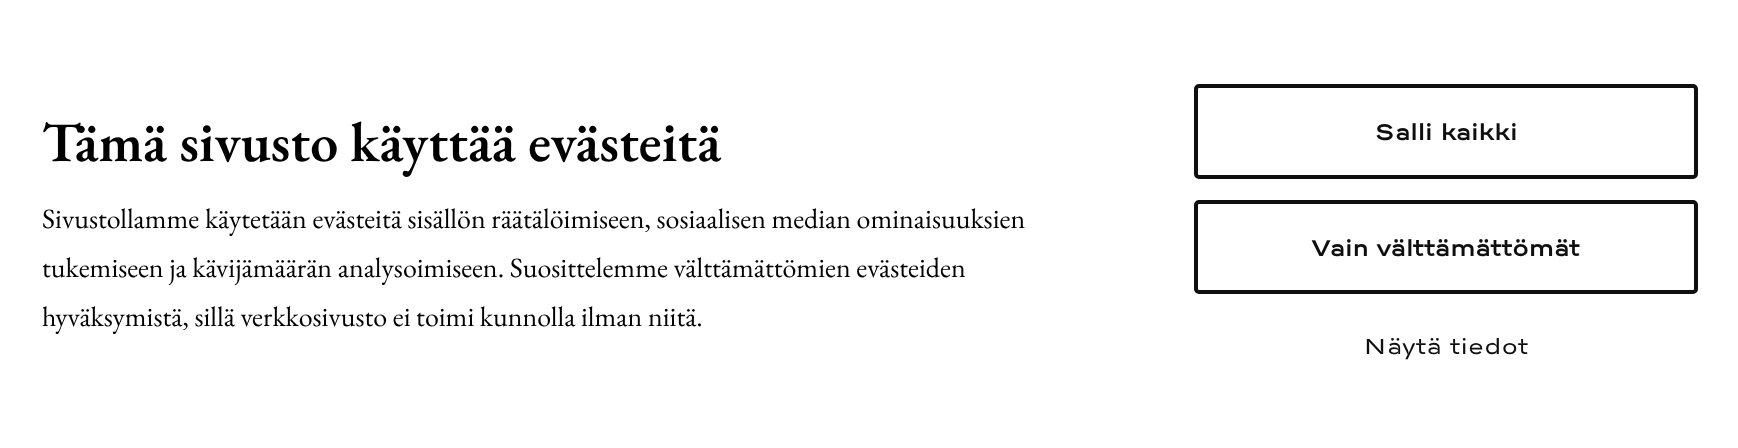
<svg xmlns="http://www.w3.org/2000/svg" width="1738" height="448">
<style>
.a{font:600 56px EB Garamond;fill:#000}
.b{font:28px EB Garamond;fill:#000}
.c{font:bold 28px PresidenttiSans;fill:#0f0f0f}
.d{font:28px PresidenttiSans;fill:#0f0f0f}
</style>
<rect width="100%" height="100%" fill="#fff"/>
<rect fill="none" stroke="#0f0f0f" stroke-width="4" x="1196" y="86" width="500" height="91" rx="3"/>
<rect fill="none" stroke="#0f0f0f" stroke-width="4" x="1196" y="202" width="500" height="90" rx="3"/>
<text class="a" x="42" y="161">Tämä sivusto käyttää evästeitä</text>
<text class="b" x="42" y="228">Sivustollamme käytetään evästeitä sisällön räätälöimiseen, sosiaalisen median ominaisuuksien</text>
<text class="b" x="42" y="277">tukemiseen ja kävijämäärän analysoimiseen. Suosittelemme välttämättömien evästeiden</text>
<text class="b" x="42" y="326">hyväksymistä, sillä verkkosivusto ei toimi kunnolla ilman niitä.</text>
<text class="c" x="1374" y="140">Salli kaikki</text>
<text class="c" x="1311" y="256">Vain välttämättömät</text>
<text class="d" x="1363" y="354">Näytä tiedot</text>
</svg>
